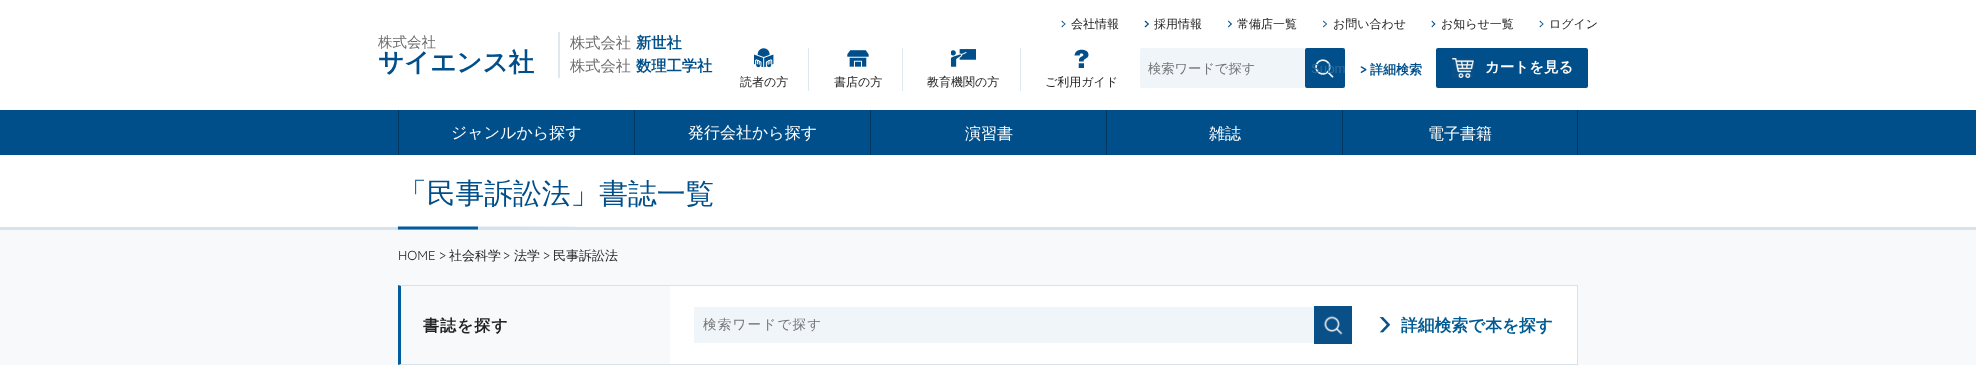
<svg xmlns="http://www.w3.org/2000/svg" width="1976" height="365">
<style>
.a{font:500 14.5px WenQuanYi Zen Hei;fill:#6e6e6e}
.b{font:bold 25.5px WenQuanYi Zen Hei;fill:#004f8a}
.c{font:500 15.25px WenQuanYi Zen Hei;fill:#6e6e6e}
.d{font:bold 15.25px WenQuanYi Zen Hei;fill:#004f8a}
.e{font:500 12px WenQuanYi Zen Hei;fill:#222}
.f{font:500 13.25px WenQuanYi Zen Hei;fill:#757575}
.g{font:13.25px Liberation Sans;fill:#2b6c9c}
.h{font:bold 13px Quicksand;fill:#004f8a}
.i{font:bold 13px WenQuanYi Zen Hei;fill:#004f8a}
.j{font:bold 14.5px WenQuanYi Zen Hei;fill:#fff}
.k{font:500 16px WenQuanYi Zen Hei;fill:#fff}
.l{font:500 28.75px WenQuanYi Zen Hei;fill:#004f8a}
.m{font:13px Quicksand;fill:#222}
.n{font:500 13px WenQuanYi Zen Hei;fill:#222}
.o{font:bold 16px WenQuanYi Zen Hei;letter-spacing:1px;fill:#222}
.p{font:500 13.5px WenQuanYi Zen Hei;letter-spacing:1.25px;fill:#757575}
.q{font:bold 16.75px WenQuanYi Zen Hei;fill:#005b92}
</style>
<rect width="100%" height="100%" fill="#fff"/>
<path fill="#e0e8ee" d="M558 32h2v46H558z"/>
<path fill="#004f8a" d="M1062 20.5l3.5 3.5l-.5 .5l-3.5-3z"/>
<path fill="#004f8a" d="M1065 23.5l.5 .5l-3.5 3.5l-.5-1z"/>
<path fill="#004f8a" d="M1145.5 20.5l3.5 3.5l-1 .5l-3.5-3z"/>
<path fill="#004f8a" d="M1148 23.5l1 .5l-3.5 3.5l-1-1z"/>
<path fill="#004f8a" d="M1228.5 20.5l3.5 3.5l-1 .5l-3-3z"/>
<path fill="#004f8a" d="M1231 23.5l1 .5l-3.5 3.5l-.5-1z"/>
<path fill="#004f8a" d="M1323.5 20.5l3.5 3.5l-.5 .5l-3.5-3z"/>
<path fill="#004f8a" d="M1326.5 23.5l.5 .5l-3.5 3.5l-.5-1z"/>
<path fill="#004f8a" d="M1432 20.5l3.5 3.5l-1 .5l-3-3z"/>
<path fill="#004f8a" d="M1434.5 23.5l1 .5l-3.5 3.5l-.5-1z"/>
<path fill="#004f8a" d="M1540 20.5l3.5 3.5l-.5 .5l-3.5-3z"/>
<path fill="#004f8a" d="M1543 23.5l.5 .5l-3.5 3.5l-.5-1z"/>
<rect fill="#eff5f9" x="1140" y="48" width="165" height="40" rx="2"/>
<rect fill="#004f8a" x="1305" y="48" width="40" height="40" rx="2"/>
<image href="1.png" x="1315" y="59" width="19" height="19"/>
<rect fill="#004f8a" x="1436" y="48" width="152" height="40" rx="2"/>
<image href="2.png" x="1452" y="58" width="22" height="20"/>
<path fill="#e0e8ee" d="M808 48h1v43H808z"/>
<image href="3.png" x="754" y="48" width="20" height="20"/>
<path fill="#e0e8ee" d="M902 48h1v43H902z"/>
<image href="4.png" x="847" y="50" width="22" height="17"/>
<path fill="#e0e8ee" d="M1020 48h1v43H1020z"/>
<image href="5.png" x="951" y="49" width="25" height="18"/>
<image href="6.png" x="1074" y="49" width="15" height="19"/>
<path fill="#004f8a" d="M0 110h1976v45H0z"/>
<path fill="#003760" d="M398 110h1v45H398z"/>
<path fill="#003760" d="M634 110h1v45H634z"/>
<path fill="#003760" d="M870 110h1v45H870z"/>
<path fill="#003760" d="M1106 110h1v45H1106z"/>
<path fill="#003760" d="M1577 110h1v45H1577z"/>
<path fill="#003760" d="M1342 110h1v45H1342z"/>
<path fill="#f7f9fa" d="M0 230h1976v135H0z"/>
<path fill="#d8e2ea" d="M0 227h1976v3H0z"/>
<image href="7.png" x="397" y="226" width="180" height="4"/>
<path fill="#d8e2ea" d="M398 285h1180l-1 1h-1176z"/>
<path fill="#d8e2ea" d="M1577 285h1v80H1577z"/>
<path fill="#d8e2ea" d="M1578 365h-1180l3-1h1176z"/>
<path fill="#005b9f" d="M398 365v-80l3 1v78z"/>
<path fill="#fff" d="M670 286h907v78H670z"/>
<path fill="#eff5f9" d="M694 307h620v36H694z"/>
<image href="8.png" x="1314" y="306" width="38" height="38"/>
<image href="9.png" x="1379" y="317" width="11" height="16"/>
<text class="a" x="378" y="47" transform="rotate(0.1 378 47)">株式会社</text>
<text class="b" x="378" y="71">サイエンス社</text>
<text class="c" x="570" y="48" transform="rotate(0.1 570 48)">株式会社</text>
<text class="d" x="636" y="48" transform="rotate(0.1 636 48)">新世社</text>
<text class="c" x="570" y="71" transform="rotate(0.1 570 71)">株式会社</text>
<text class="d" x="636" y="71" transform="rotate(0.1 636 71)">数理工学社</text>
<text class="e" x="1071" y="28">会社情報</text>
<text class="e" x="1154" y="28">採用情報</text>
<text class="e" x="1237" y="28">常備店一覧</text>
<text class="e" x="1333" y="28">お問い合わせ</text>
<text class="e" x="1441" y="28">お知らせ一覧</text>
<text class="e" x="1549" y="28">ログイン</text>
<text class="f" x="1148" y="73">検索ワードで探す</text>
<text class="g" x="1311" y="73">Subm</text>
<text class="h" x="1360" y="74">&gt;</text>
<text class="i" x="1370" y="74">詳細検索</text>
<text class="j" x="1485" y="72">カートを見る</text>
<text class="e" x="740" y="86">読者の方</text>
<text class="e" x="834" y="86">書店の方</text>
<text class="e" x="927" y="86">教育機関の方</text>
<text class="e" x="1045" y="86">ご利用ガイド</text>
<text class="k" x="451" y="138" transform="rotate(0.1 451 138)">ジャンルから探す</text>
<text class="k" x="688" y="138" transform="rotate(0.1 688 138)">発行会社から探す</text>
<text class="k" x="965" y="139">演習書</text>
<text class="k" x="1209" y="139">雑誌</text>
<text class="k" x="1428" y="139">電子書籍</text>
<text class="l" x="398" y="203" transform="rotate(0.1 398 203)">「民事訴訟法」書誌一覧</text>
<text class="m" x="398" y="260">HOME &gt;</text>
<text class="n" x="449" y="260">社会科学</text>
<text class="m" x="503" y="260">&gt;</text>
<text class="n" x="514" y="260">法学</text>
<text class="m" x="543" y="260">&gt;</text>
<text class="n" x="553" y="260">民事訴訟法</text>
<text class="o" x="423" y="331" transform="rotate(0.1 423 331)">書誌を探す</text>
<text class="p" x="703" y="329">検索ワードで探す</text>
<text class="q" x="1401" y="331" transform="rotate(0.1 1401 331)">詳細検索で本を探す</text>
</svg>
